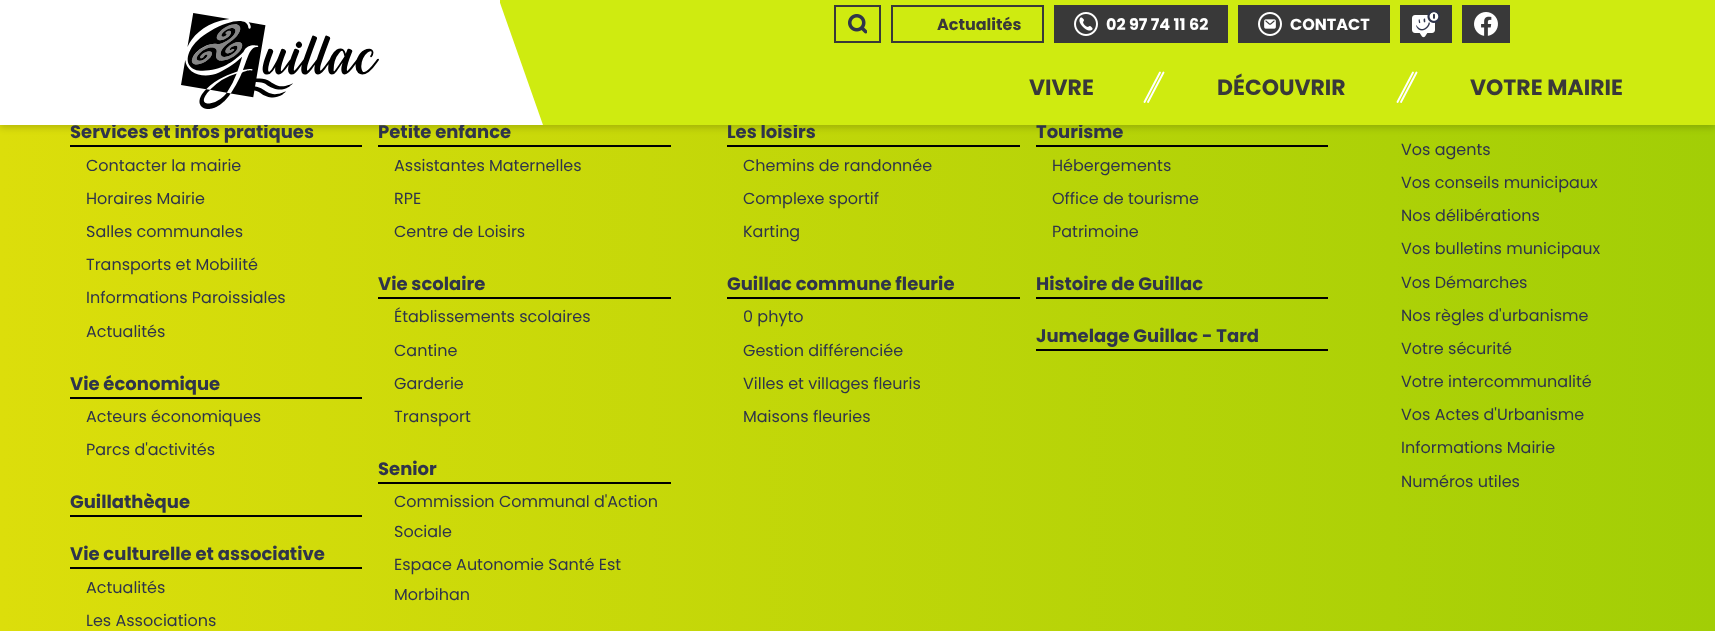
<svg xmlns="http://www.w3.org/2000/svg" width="1715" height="631">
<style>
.a{font:bold 18px Poppins;fill:#2f344b}
.b{font:16px Poppins;fill:#2f344b}
.c{font:bold 22px Poppins;fill:#393939}
.d{font:bold 16px Poppins;fill:#fff}
.e{font:bold 16px Poppins;fill:#393939}
</style>
<defs>
<linearGradient id="g1" gradientUnits="userSpaceOnUse" x1="0" y1="319" x2="1715" y2="318"><stop offset="0" stop-color="#dcde0b"/><stop offset="1" stop-color="#a2ce06"/></linearGradient>
</defs>
<rect width="100%" height="100%" fill="#fff"/>
<path fill="url(#g1)" d="M0 125h1715v506H0z"/>
<path fill="#00000029" filter="blur(3px)" d="M0 3h1715v125H0z"/>
<path fill="#000" d="M70 145h292v2H70z"/>
<path fill="#000" d="M378 145h293v2H378z"/>
<path fill="#000" d="M70 397h292v2H70z"/>
<path fill="#000" d="M378 297h293v2H378z"/>
<path fill="#000" d="M70 515h292v2H70z"/>
<path fill="#000" d="M378 482h293v2H378z"/>
<path fill="#000" d="M70 567h292v2H70z"/>
<path fill="#000" d="M727 145h293v2H727z"/>
<path fill="#000" d="M1036 145h292v2H1036z"/>
<path fill="#000" d="M727 297h293v2H727z"/>
<path fill="#000" d="M1036 297h292v2H1036z"/>
<path fill="#000" d="M1036 349h292v2H1036z"/>
<text class="a" x="70" y="138">Services et infos pratiques</text>
<text class="b" x="86" y="171">Contacter la mairie</text>
<text class="b" x="86" y="204">Horaires Mairie</text>
<text class="b" x="86" y="237">Salles communales</text>
<text class="b" x="86" y="270">Transports et Mobilité</text>
<text class="b" x="86" y="303">Informations Paroissiales</text>
<text class="b" x="86" y="337">Actualités</text>
<text class="a" x="378" y="138">Petite enfance</text>
<path fill="#fff" d="M0 0h500v125H0z"/>
<image href="1.png" x="181" y="13" width="198" height="96"/>
<text class="b" x="394" y="171">Assistantes Maternelles</text>
<text class="b" x="394" y="204">RPE</text>
<text class="b" x="394" y="237">Centre de Loisirs</text>
<text class="a" x="70" y="390">Vie économique</text>
<text class="b" x="86" y="422">Acteurs économiques</text>
<text class="b" x="86" y="455">Parcs d'activités</text>
<text class="a" x="378" y="290">Vie scolaire</text>
<text class="b" x="394" y="322">Établissements scolaires</text>
<text class="b" x="394" y="356">Cantine</text>
<text class="b" x="394" y="389">Garderie</text>
<text class="b" x="394" y="422">Transport</text>
<text class="a" x="70" y="508">Guillathèque</text>
<text class="a" x="378" y="475">Senior</text>
<text class="b" x="394" y="507">Commission Communal d'Action</text>
<text class="b" x="394" y="537">Sociale</text>
<text class="b" x="394" y="570">Espace Autonomie Santé Est</text>
<text class="b" x="394" y="600">Morbihan</text>
<text class="a" x="70" y="560">Vie culturelle et associative</text>
<text class="b" x="86" y="593">Actualités</text>
<text class="b" x="86" y="626">Les Associations</text>
<text class="a" x="727" y="138">Les loisirs</text>
<text class="b" x="743" y="171">Chemins de randonnée</text>
<text class="b" x="743" y="204">Complexe sportif</text>
<text class="b" x="743" y="237">Karting</text>
<text class="a" x="1036" y="138">Tourisme</text>
<path fill="#cfeb10" d="M500 0h1215v125H500z"/>
<text class="c" x="1470" y="95">VOTRE MAIRIE</text>
<path fill="none" stroke="#fff" stroke-width="1.9" stroke-linecap="round" d="M1413 72.5l-15.5 29.5m19-29.5l-15.5 29.5"/>
<text class="c" x="1217" y="95">DÉCOUVRIR</text>
<path fill="none" stroke="#fff" stroke-width="1.9" stroke-linecap="round" d="M1160 72.5l-15.5 29.5m19-29.5l-15.5 29.5"/>
<text class="c" x="1029" y="95">VIVRE</text>
<path fill="#fff" d="M499 0v125h44z"/>
<path fill="#393939" d="M1462 5h48v38H1462z"/>
<image href="6.png" x="1474" y="12" width="24" height="24"/>
<path fill="#393939" d="M1400 5h52v38H1400z"/>
<image href="5.png" x="1412" y="10" width="28" height="28"/>
<path fill="#393939" d="M1238 5h152v38H1238z"/>
<text class="d" x="1290" y="30">CONTACT</text>
<image href="4.png" x="1258" y="12" width="24" height="24"/>
<path fill="#393939" d="M1054 5h174v38H1054z"/>
<text class="d" x="1106" y="30">02 97 74 11 62</text>
<image href="3.png" x="1074" y="12" width="24" height="24"/>
<path fill="none" stroke="#393939" stroke-width="2" d="M892 6h151v36H892z"/>
<text class="e" x="937" y="30">Actualités</text>
<path fill="none" stroke="#393939" stroke-width="2" d="M835 6h45v36H835z"/>
<image href="2.png" x="848" y="14" width="19" height="20"/>
<text class="b" x="1052" y="171">Hébergements</text>
<text class="b" x="1052" y="204">Office de tourisme</text>
<text class="b" x="1052" y="237">Patrimoine</text>
<text class="a" x="727" y="290">Guillac commune fleurie</text>
<text class="b" x="743" y="322">0 phyto</text>
<text class="b" x="743" y="356">Gestion différenciée</text>
<text class="b" x="743" y="389">Villes et villages fleuris</text>
<text class="b" x="743" y="422">Maisons fleuries</text>
<text class="a" x="1036" y="290">Histoire de Guillac</text>
<text class="a" x="1036" y="342">Jumelage Guillac - Tard</text>
<text class="b" x="1401" y="155">Vos agents</text>
<text class="b" x="1401" y="188">Vos conseils municipaux</text>
<text class="b" x="1401" y="221">Nos délibérations</text>
<text class="b" x="1401" y="254">Vos bulletins municipaux</text>
<text class="b" x="1401" y="288">Vos Démarches</text>
<text class="b" x="1401" y="321">Nos règles d'urbanisme</text>
<text class="b" x="1401" y="354">Votre sécurité</text>
<text class="b" x="1401" y="387">Votre intercommunalité</text>
<text class="b" x="1401" y="420">Vos Actes d'Urbanisme</text>
<text class="b" x="1401" y="453">Informations Mairie</text>
<text class="b" x="1401" y="487">Numéros utiles</text>
</svg>
